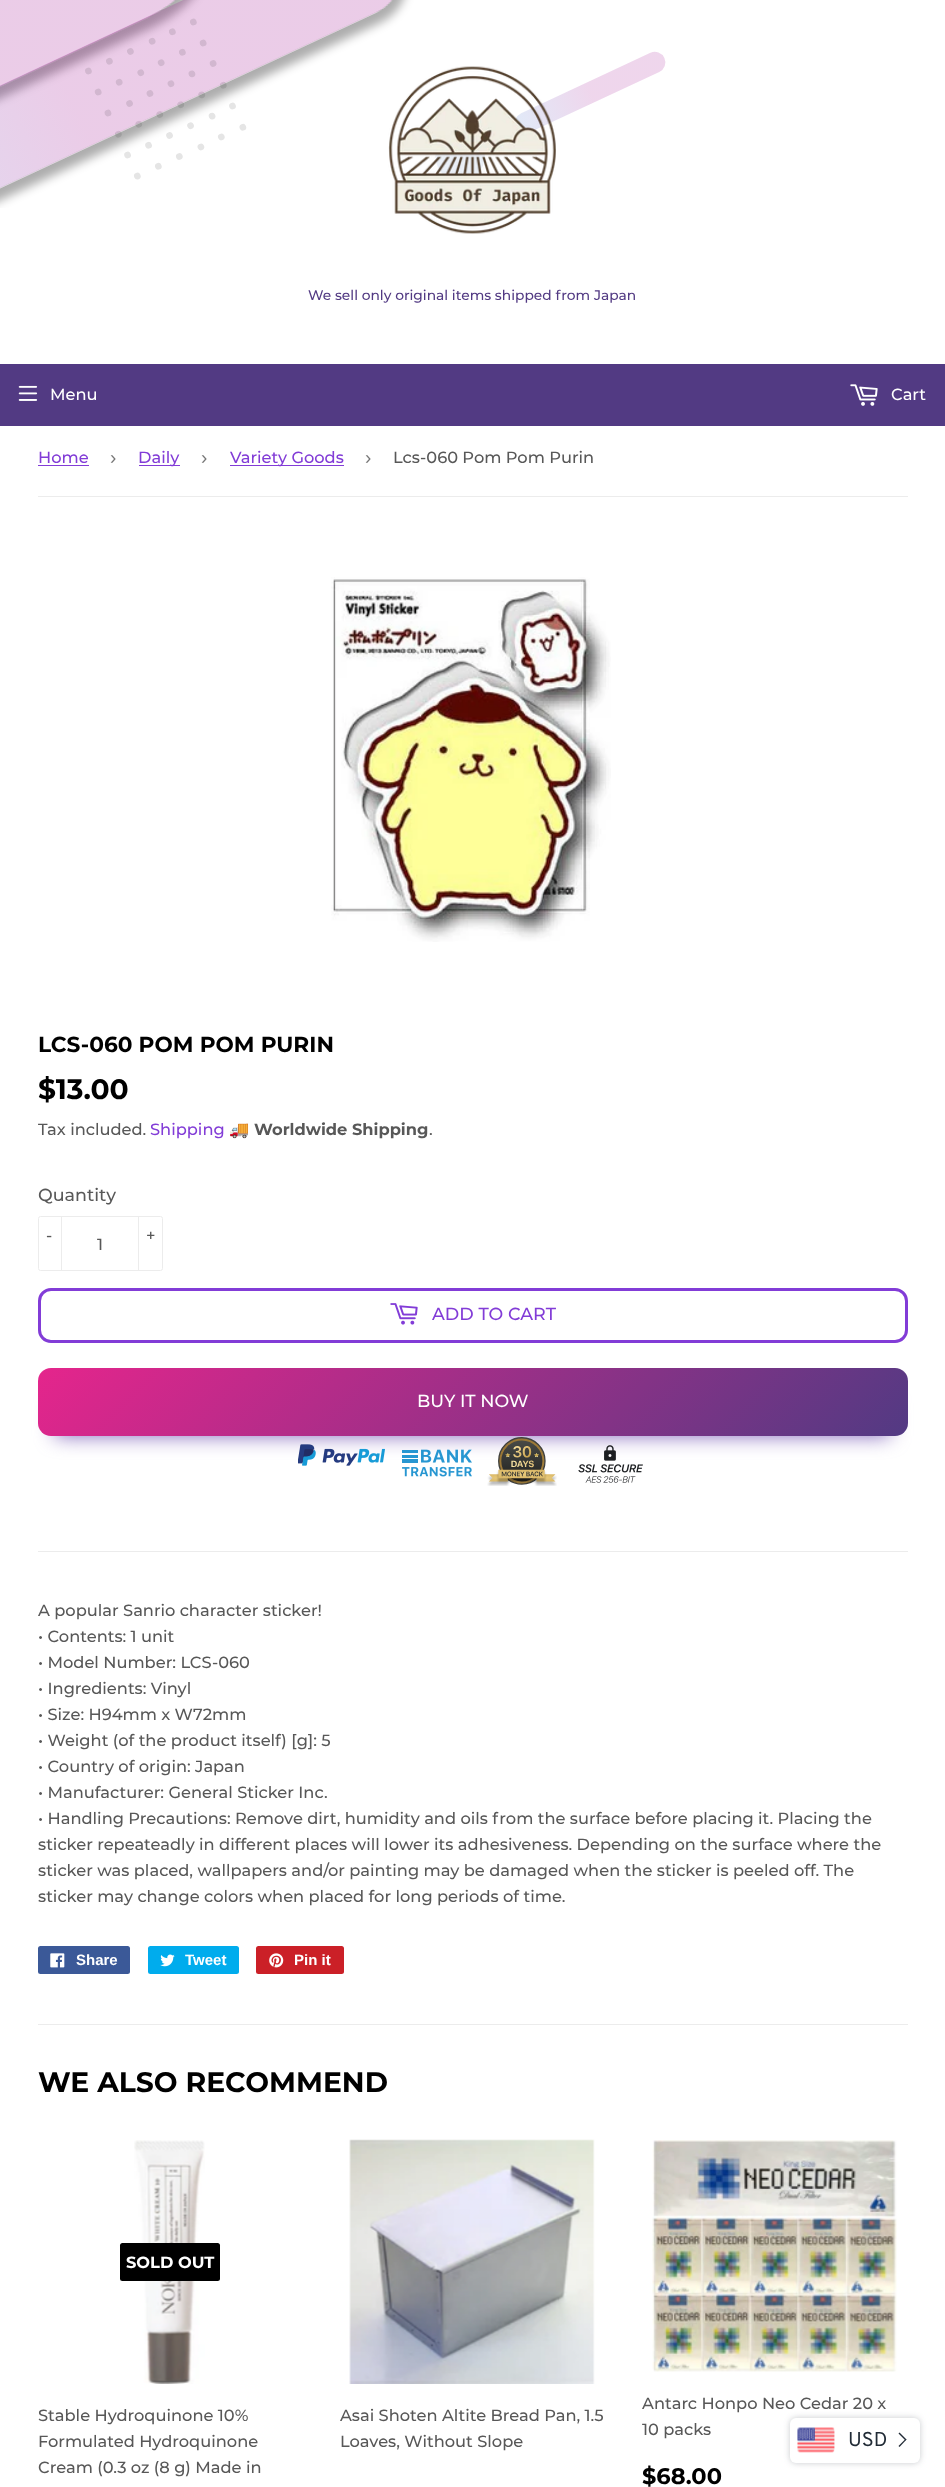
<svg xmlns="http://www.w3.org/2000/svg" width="945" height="2487">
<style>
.a{font:500 13.8px Montserrat;fill:#523a83}
.b{font:500 16.25px Montserrat;fill:#fff}
.c{font:500 16.25px Montserrat;fill:#823cd7}
.d{font:19px Liberation Sans;fill:#767676}
.e{font:500 16.25px Montserrat;fill:#585858}
.f{font:bold 21.7px Montserrat;fill:#000}
.g{font:bold 28.2px Montserrat;fill:#000}
.h{font:bold 16.25px Noto Color Emoji;fill:#585858}
.i{font:bold 16.25px Montserrat;fill:#585858}
.j{font:500 17.5px Montserrat;fill:#585858}
.k{font:500 17.5px Montserrat;fill:#823cd7}
.l{font:500 17.5px Montserrat;fill:#fff}
.m{font:bold 15px Liberation Sans;fill:#fff}
.n{font:bold 16.25px Montserrat;fill:#fff}
.o{font:bold 22.5px Montserrat;fill:#000}
.p{font:20px Overpass;fill:#212b36}
</style>
<defs>
<linearGradient id="g1" gradientUnits="userSpaceOnUse" x1="238" y1="1167" x2="707" y2="1637"><stop offset="0" stop-color="#e5258c"/><stop offset="1" stop-color="#523a83"/></linearGradient>
</defs>
<rect width="100%" height="100%" fill="#fff"/>
<image href="1.png" x="0" y="0" width="666" height="208"/>
<image href="2.png" x="388" y="66" width="168" height="168"/>
<path fill="#523a83" d="M0 364h945v62H0z"/>
<image href="3.png" x="18" y="385" width="20" height="16"/>
<image href="4.png" x="850" y="384" width="28" height="22"/>
<path fill="#ececec" d="M38 496h870v1H38z"/>
<path fill="#823cd7" d="M38 465h51v1H38z"/>
<path fill="#823cd7" d="M139 465h41v1H139z"/>
<path fill="#823cd7" d="M230 465h114v1H230z"/>
<image href="5.png" x="331" y="577" width="280" height="365"/>
<rect fill="none" stroke="#ececec" x="38.5" y="1216.5" width="124" height="54" rx="2"/>
<path fill="#ececec" d="M61 1216h1v55H61z"/>
<path fill="#ececec" d="M138 1216h1v55H138z"/>
<rect fill="none" stroke="#823cd7" stroke-width="3" x="39.5" y="1289.5" width="867" height="52" rx="11.5"/>
<image href="6.png" x="390" y="1303" width="28" height="22"/>
<path fill="#8367bc" filter="blur(10px)" d="M55 1403h835v33H55z"/>
<rect fill="url(#g1)" x="38" y="1368" width="870" height="68" rx="13"/>
<image href="7.png" x="298" y="1444" width="87" height="22"/>
<image href="8.png" x="402" y="1449" width="70" height="28"/>
<image href="9.png" x="487" y="1437" width="70" height="49"/>
<image href="10.png" x="578" y="1445" width="65" height="38"/>
<path fill="#ececec" d="M38 1551h870v1H38z"/>
<rect fill="#3b5998" x="38" y="1946" width="92" height="28" rx="2.5"/>
<image href="11.png" x="50" y="1953" width="15" height="15"/>
<rect fill="#00aced" x="148" y="1946" width="91" height="28" rx="2.5"/>
<image href="12.png" x="160" y="1954" width="15" height="13"/>
<rect fill="#cb2027" x="256" y="1946" width="88" height="28" rx="2.5"/>
<image href="13.png" x="269" y="1953" width="15" height="15"/>
<path fill="#ececec" d="M38 2024h870v1H38z"/>
<image href="14.png" x="134" y="2140" width="71" height="244"/>
<rect fill="#000" x="120" y="2243" width="100" height="38" rx="2.5"/>
<image href="15.png" x="349" y="2139" width="246" height="245"/>
<image href="16.png" x="652" y="2140" width="245" height="232"/>
<rect fill="#212b3640" filter="blur(3px)" x="790" y="2418" width="130" height="45" rx="6"/>
<rect fill="#fff" x="790" y="2418" width="130" height="45" rx="6"/>
<image href="17.png" x="797" y="2427" width="38" height="26"/>
<path fill="#212b36" d="M898.5 2433.5l1-1l7 7l-1 1z"/>
<path fill="#212b36" d="M898.5 2446l7-7l1 .5l-7 7.5z"/>
<text class="a" x="308" y="300">We sell only original items shipped from Japan</text>
<text class="b" x="50" y="400">Menu</text>
<text class="b" x="891" y="400">Cart</text>
<text class="c" x="38" y="463">Home</text>
<text class="d" x="110" y="464">›</text>
<text class="c" x="138" y="463">Daily</text>
<text class="d" x="201" y="464">›</text>
<text class="c" x="230" y="463">Variety Goods</text>
<text class="d" x="365" y="464">›</text>
<text class="e" x="393" y="463">Lcs-060 Pom Pom Purin</text>
<text class="f" x="38" y="1052">LCS-060 POM POM PURIN</text>
<text class="g" x="38" y="1099">$13.00</text>
<text class="e" x="38" y="1135">Tax included.</text>
<text class="c" x="150" y="1135">Shipping</text>
<text class="h" x="229" y="1135">🚚</text>
<text class="i" x="254" y="1135">Worldwide Shipping</text>
<text class="e" x="429" y="1135">.</text>
<text class="j" x="38" y="1201">Quantity</text>
<text class="e" x="46" y="1241">-</text>
<text class="e" x="146" y="1241">+</text>
<text class="e" x="97" y="1250">1</text>
<text class="k" x="432" y="1320">ADD TO CART</text>
<text class="l" x="417" y="1407">BUY IT NOW</text>
<text class="e" x="38" y="1616">A popular Sanrio character sticker!</text>
<text class="e" x="38" y="1642">• Contents: 1 unit</text>
<text class="e" x="38" y="1668">• Model Number: LCS-060</text>
<text class="e" x="38" y="1694">• Ingredients: Vinyl</text>
<text class="e" x="38" y="1720">• Size: H94mm x W72mm</text>
<text class="e" x="38" y="1746">• Weight (of the product itself) [g]: 5</text>
<text class="e" x="38" y="1772">• Country of origin: Japan</text>
<text class="e" x="38" y="1798">• Manufacturer: General Sticker Inc.</text>
<text class="e" x="38" y="1824">• Handling Precautions: Remove dirt, humidity and oils from the surface before placing it. Placing the</text>
<text class="e" x="38" y="1850">sticker repeateadly in different places will lower its adhesiveness. Depending on the surface where the</text>
<text class="e" x="38" y="1876">sticker was placed, wallpapers and/or painting may be damaged when the sticker is peeled off. The</text>
<text class="e" x="38" y="1902">sticker may change colors when placed for long periods of time.</text>
<text class="m" x="76" y="1965">Share</text>
<text class="m" x="185" y="1965">Tweet</text>
<text class="m" x="294" y="1965">Pin it</text>
<text class="g" x="38" y="2092">WE ALSO RECOMMEND</text>
<text class="n" x="126" y="2268">SOLD OUT</text>
<text class="e" x="38" y="2421">Stable Hydroquinone 10%</text>
<text class="e" x="38" y="2447">Formulated Hydroquinone</text>
<text class="e" x="38" y="2473">Cream (0.3 oz (8 g) Made in</text>
<text class="e" x="340" y="2421">Asai Shoten Altite Bread Pan, 1.5</text>
<text class="e" x="340" y="2447">Loaves, Without Slope</text>
<text class="e" x="642" y="2409">Antarc Honpo Neo Cedar 20 x</text>
<text class="e" x="642" y="2435">10 packs</text>
<text class="o" x="642" y="2484">$68.00</text>
<text class="p" x="848" y="2446">USD</text>
</svg>
